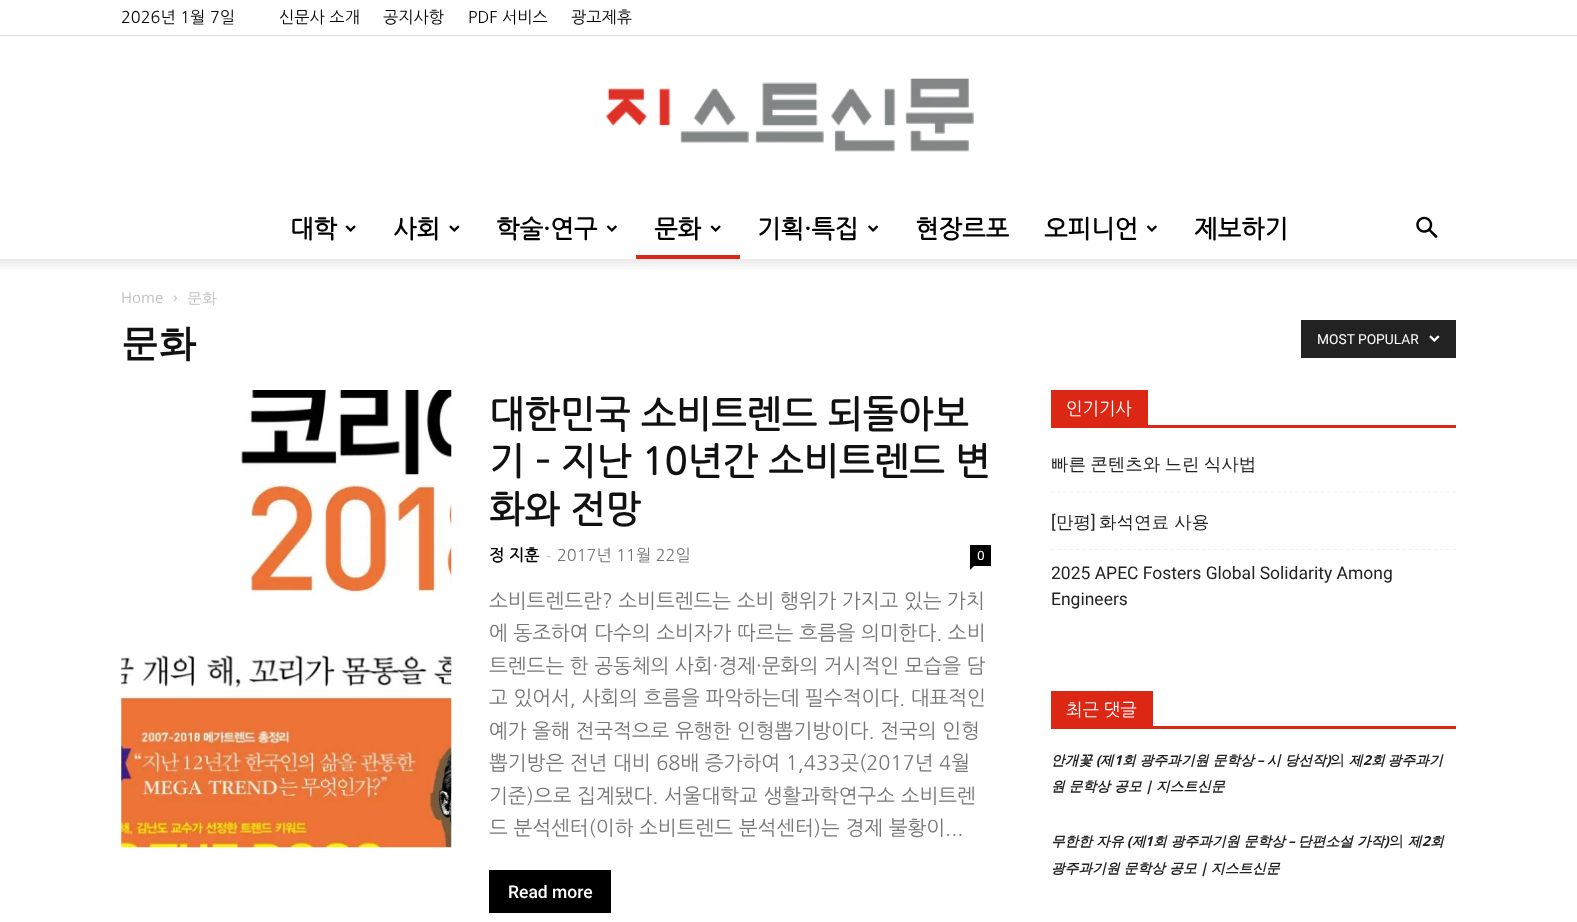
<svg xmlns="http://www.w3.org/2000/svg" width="1577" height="922">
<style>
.a{font:16.25px NanumGothic;fill:#000}
.b{font:bold 25px NanumGothic;fill:#000}
.c{font:15px Open Sans;fill:#c3c3c3}
.d{font:500 15px WenQuanYi Zen Hei;fill:#c3c3c3}
.e{font:bold 37.5px WenQuanYi Zen Hei;fill:#111}
.f{font:13.75px Roboto;fill:#fff}
.g{font:bold 37.5px NanumGothic;fill:#111}
.h{font:bold 16.25px NanumGothic;fill:#000}
.i{font:16.25px Open Sans;fill:#ccc}
.j{font:16.25px NanumGothic;fill:#767676}
.k{font:bold 12px NanumGothic;fill:#fff}
.l{font:20px NanumGothic;fill:#767676}
.m{font:500 17.5px Roboto;fill:#fff}
.n{font:17.5px NanumGothic;fill:#fff}
.o{font:500 17.5px WenQuanYi Zen Hei;fill:#222}
.p{font:17.5px Roboto;fill:#222}
.q{font:italic bold 13.75px WenQuanYi Zen Hei;fill:#222}
.r{font:italic bold 13.75px Open Sans;fill:#222}
.s{font:500 15px WenQuanYi Zen Hei;fill:#000}
</style>
<rect width="100%" height="100%" fill="#fff"/>
<path fill="#e0e0e0" d="M0 35h1577v1H0z"/>
<image href="1.png" x="606" y="77" width="368" height="75"/>
<image href="2.png" x="345" y="225" width="11" height="7"/>
<image href="3.png" x="449" y="225" width="11" height="7"/>
<image href="4.png" x="606" y="225" width="11" height="7"/>
<image href="2.png" x="710" y="225" width="11" height="7"/>
<path fill="#dc2715" d="M636 255h104v4H636z"/>
<image href="5.png" x="868" y="225" width="11" height="7"/>
<image href="4.png" x="1146" y="225" width="11" height="7"/>
<image href="6.png" x="1416" y="216" width="22" height="22"/>
<image href="7.png" x="0" y="259" width="1577" height="10"/>
<image href="8.png" x="173" y="295" width="4" height="6"/>
<path fill="#222" d="M1301 320h155v38H1301z"/>
<image href="9.png" x="1429" y="335" width="11" height="7"/>
<image href="10.png" x="121" y="390" width="331" height="458"/>
<path fill="#000" d="M970 545h21v21H970z"/>
<path fill="#000" d="M970 566h4l-4 4z"/>
<path fill="#000" d="M489 870h122v43H489z"/>
<path fill="#dc2715" d="M1051 425h405v3H1051z"/>
<path fill="#dc2715" d="M1051 390h97v35H1051z"/>
<path fill="none" stroke="#f1f1f1" stroke-width="1.2" stroke-dasharray="3.75 2.52" d="M1051 492h405"/>
<path fill="none" stroke="#f1f1f1" stroke-width="1.2" stroke-dasharray="3.75 2.52" d="M1051 549.5h405"/>
<path fill="#dc2715" d="M1051 726h405v3H1051z"/>
<path fill="#dc2715" d="M1051 691h102v35H1051z"/>
<text class="a" x="121" y="23">2026년 1월 7일</text>
<text class="a" x="279" y="23">신문사 소개</text>
<text class="a" x="383" y="23">공지사항</text>
<text class="a" x="468" y="23">PDF 서비스</text>
<text class="a" x="571" y="23">광고제휴</text>
<text class="b" x="290" y="238">대학</text>
<text class="b" x="393" y="238">사회</text>
<text class="b" x="496" y="238">학술·연구</text>
<text class="b" x="654" y="238">문화</text>
<text class="b" x="757" y="238">기획·특집</text>
<text class="b" x="915" y="238">현장르포</text>
<text class="b" x="1044" y="238">오피니언</text>
<text class="b" x="1194" y="238">제보하기</text>
<text class="c" x="121" y="303">Home</text>
<text class="d" x="187" y="303">문화</text>
<text class="e" x="121" y="356">문화</text>
<text class="f" x="1317" y="344">MOST POPULAR</text>
<text class="g" x="489" y="428">대한민국 소비트렌드 되돌아보</text>
<text class="g" x="489" y="475">기 – 지난 10년간 소비트렌드 변</text>
<text class="g" x="489" y="523">화와 전망</text>
<text class="h" x="489" y="561">정 지훈</text>
<text class="i" x="546" y="561">-</text>
<text class="j" x="557" y="561">2017년 11월 22일</text>
<text class="k" x="977" y="560">0</text>
<text class="l" x="489" y="608">소비트렌드란? 소비트렌드는 소비 행위가 가지고 있는 가치</text>
<text class="l" x="489" y="640">에 동조하여 다수의 소비자가 따르는 흐름을 의미한다. 소비</text>
<text class="l" x="489" y="673">트렌드는 한 공동체의 사회·경제·문화의 거시적인 모습을 담</text>
<text class="l" x="489" y="705">고 있어서, 사회의 흐름을 파악하는데 필수적이다. 대표적인</text>
<text class="l" x="489" y="738">예가 올해 전국적으로 유행한 인형뽑기방이다. 전국의 인형</text>
<text class="l" x="489" y="770">뽑기방은 전년 대비 68배 증가하여 1,433곳(2017년 4월</text>
<text class="l" x="489" y="803">기준)으로 집계됐다. 서울대학교 생활과학연구소 소비트렌</text>
<text class="l" x="489" y="835">드 분석센터(이하 소비트렌드 분석센터)는 경제 불황이...</text>
<text class="m" x="508" y="898">Read more</text>
<text class="n" x="1066" y="415">인기기사</text>
<text class="o" x="1051" y="470" word-spacing="-1">빠른 콘텐츠와 느린 식사법</text>
<text class="p" x="1051" y="528">[</text>
<text class="o" x="1056" y="528">만평</text>
<text class="p" x="1091" y="528">]</text>
<text class="o" x="1099" y="528">화석연료 사용</text>
<text class="p" x="1051" y="579">2025 APEC Fosters Global Solidarity Among</text>
<text class="p" x="1051" y="605">Engineers</text>
<text class="n" x="1066" y="716">최근 댓글</text>
<text class="q" x="1051" y="765">안개꽃</text>
<text class="r" x="1096" y="765">(</text>
<text class="q" x="1100" y="765">제</text>
<text class="r" x="1114" y="765">1</text>
<text class="q" x="1122" y="765">회 광주과기원 문학상</text>
<text class="r" x="1257" y="765">–</text>
<text class="q" x="1267" y="765">시 당선작</text>
<text class="r" x="1326" y="765">)</text>
<text class="s" x="1330" y="765">의</text>
<text class="q" x="1349" y="765">제</text>
<text class="r" x="1363" y="765">2</text>
<text class="q" x="1371" y="765" word-spacing="-1">회 광주과기</text>
<text class="q" x="1051" y="791">원 문학상 공모</text>
<text class="r" x="1145" y="791">|</text>
<text class="q" x="1156" y="791">지스트신문</text>
<text class="q" x="1051" y="846">무한한 자유</text>
<text class="r" x="1127" y="846">(</text>
<text class="q" x="1132" y="846">제</text>
<text class="r" x="1145" y="846">1</text>
<text class="q" x="1153" y="846">회 광주과기원 문학상</text>
<text class="r" x="1288" y="846">–</text>
<text class="q" x="1298" y="846">단편소설 가작</text>
<text class="r" x="1384" y="846">)</text>
<text class="s" x="1389" y="846">의</text>
<text class="q" x="1408" y="846">제</text>
<text class="r" x="1422" y="846">2</text>
<text class="q" x="1430" y="846">회</text>
<text class="q" x="1051" y="873">광주과기원 문학상 공모</text>
<text class="r" x="1200" y="873">|</text>
<text class="q" x="1211" y="873">지스트신문</text>
</svg>
